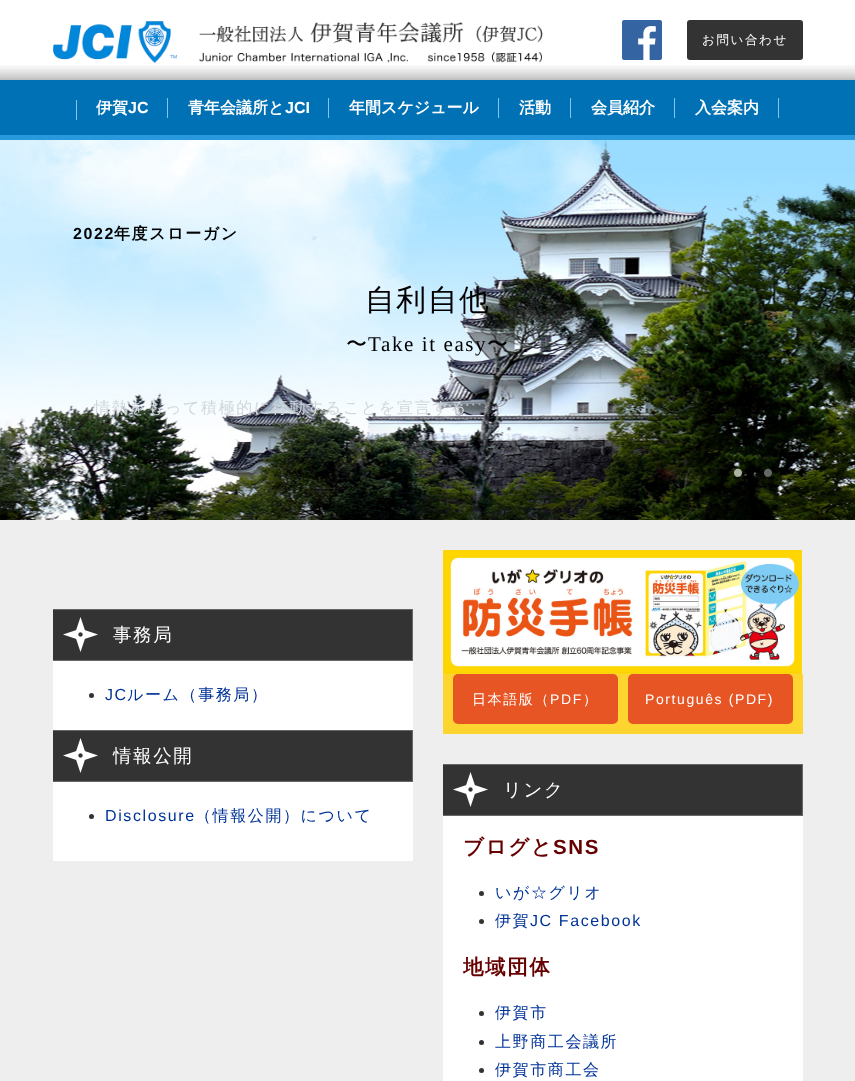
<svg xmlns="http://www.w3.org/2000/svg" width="855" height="1081">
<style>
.a{font:500 12.5px WenQuanYi Zen Hei;letter-spacing:1.6px;fill:#fff}
.b{font:bold 16px WenQuanYi Zen Hei;fill:#fff}
.c{font:bold 16px Liberation Sans;fill:#fff}
.d{font:bold 16px Liberation Sans;letter-spacing:1.6px;fill:#000}
.e{font:bold 16px WenQuanYi Zen Hei;letter-spacing:1.6px;fill:#000}
.f{font:500 29.75px WenQuanYi Zen Hei;letter-spacing:1.6px;fill:#000}
.g{font:500 21px WenQuanYi Zen Hei;letter-spacing:1.6px;fill:#000}
.h{font:21px Liberation Serif;letter-spacing:1.6px;fill:#000}
.i{font:500 16px WenQuanYi Zen Hei;letter-spacing:1.6px;fill:#d0d7dc}
.j{font:34px Liberation Serif;fill:#aeb3a7}
.k{font:34px Liberation Serif;fill:#656864}
.l{font:500 18.5px WenQuanYi Zen Hei;letter-spacing:1.6px;fill:#fff}
.m{font:16px Liberation Sans;letter-spacing:1.6px;fill:#039}
.n{font:500 16px WenQuanYi Zen Hei;letter-spacing:1.6px;fill:#039}
.o{font:500 14px WenQuanYi Zen Hei;letter-spacing:1.6px;fill:#fff}
.p{font:14px Liberation Sans;letter-spacing:1.6px;fill:#fff}
.q{font:bold 20.5px WenQuanYi Zen Hei;letter-spacing:1.6px;fill:#600}
.r{font:bold 20.5px Liberation Sans;letter-spacing:1.6px;fill:#600}
</style>
<defs>
<clipPath id="clip1"><path d="M53 610h359v50H53z"/></clipPath>
<clipPath id="clip2"><path d="M53 731h359v50H53z"/></clipPath>
<clipPath id="clip3"><path d="M443 765h359v50H443z"/></clipPath>
</defs>
<rect width="100%" height="100%" fill="#eee"/>
<path fill="#fff" d="M0 0h855v65H0z"/>
<image href="1.png" x="0" y="65" width="855" height="15"/>
<image href="2.png" x="53" y="21" width="490" height="43"/>
<image href="3.png" x="622" y="20" width="40" height="40"/>
<rect fill="#333" x="687" y="20" width="116" height="40" rx="3"/>
<path fill="#0071b5" d="M0 80h855v55H0z"/>
<path fill="#2899dd" d="M0 135h855v5H0z"/>
<path fill="#82c4eb" d="M76 100h1v20H76z"/>
<path fill="#82c4eb" d="M167 98h1v20H167z"/>
<path fill="#82c4eb" d="M328 98h1v20H328z"/>
<path fill="#82c4eb" d="M498 98h1v20H498z"/>
<path fill="#82c4eb" d="M570 98h1v20H570z"/>
<path fill="#82c4eb" d="M674 98h1v20H674z"/>
<path fill="#82c4eb" d="M778 98h1v20H778z"/>
<image href="4.png" x="0" y="140" width="855" height="380"/>
<path fill="#fff" d="M53 661h360v200H53z"/>
<path fill="#333" d="M53 610h358v49H53z"/>
<image href="5.png" x="63" y="617" width="35" height="35"/>
<g clip-path="url(#clip1)">
<path fill="#383838" fill-rule="evenodd" d="M-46 511h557v248h-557zm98 98h359v50h-359z"/>
</g>
<path fill="#666" d="M53 609h360v1H53z"/>
<path fill="#666" d="M412 609h1v52H412z"/>
<path fill="#666" d="M53 660h360v1H53z"/>
<circle fill="#333" cx="91.5" cy="695.5" r="2.5"/>
<path fill="#333" d="M53 731h358v49H53z"/>
<image href="5.png" x="63" y="738" width="35" height="35"/>
<g clip-path="url(#clip2)">
<path fill="#383838" fill-rule="evenodd" d="M-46 632h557v248h-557zm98 98h359v50h-359z"/>
</g>
<path fill="#666" d="M53 730h360v1H53z"/>
<path fill="#666" d="M412 730h1v52H412z"/>
<path fill="#666" d="M53 781h360v1H53z"/>
<circle fill="#333" cx="91.5" cy="816.5" r="2.5"/>
<image href="6.png" x="443" y="550" width="359" height="124"/>
<path fill="#fdd530" d="M443 674h360v60H443z"/>
<rect fill="#e85525" x="453" y="674" width="165" height="50" rx="5"/>
<rect fill="#e85525" x="628" y="674" width="165" height="50" rx="5"/>
<path fill="#fff" d="M443 816h360v265H443z"/>
<path fill="#333" d="M443 765h358v49H443z"/>
<image href="5.png" x="453" y="772" width="35" height="35"/>
<g clip-path="url(#clip3)">
<path fill="#383838" fill-rule="evenodd" d="M344 666h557v248h-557zm98 98h359v50h-359z"/>
</g>
<path fill="#666" d="M443 764h360v1H443z"/>
<path fill="#666" d="M802 764h1v52H802z"/>
<path fill="#666" d="M443 815h360v1H443z"/>
<circle fill="#333" cx="481.5" cy="893.5" r="2.5"/>
<circle fill="#333" cx="481.5" cy="921.5" r="2.5"/>
<circle fill="#333" cx="481.5" cy="1013.5" r="2.5"/>
<circle fill="#333" cx="481.5" cy="1042.5" r="2.5"/>
<circle fill="#333" cx="481.5" cy="1070.5" r="2.5"/>
<text class="a" x="702" y="44">お問い合わせ</text>
<text class="b" x="96" y="113">伊賀</text>
<text class="c" x="128" y="113">JC</text>
<text class="b" x="188" y="113">青年会議所と</text>
<text class="c" x="285" y="113">JCI</text>
<text class="b" x="349" y="113">年間スケジュール</text>
<text class="b" x="519" y="113">活動</text>
<text class="b" x="591" y="113">会員紹介</text>
<text class="b" x="695" y="113">入会案内</text>
<text class="d" x="73" y="239">2022</text>
<text class="e" x="114" y="239">年度スローガン</text>
<text class="f" x="365" y="310">自利自他</text>
<text class="g" x="346" y="351">〜</text>
<text class="h" x="368" y="351">Take it easy</text>
<text class="g" x="487" y="351">〜</text>
<text class="i" x="94" y="413">情熱をもって積極的に行動することを宣言する</text>
<text class="j" x="732" y="484">•</text>
<text class="k" x="762" y="484">•</text>
<text class="l" x="113" y="641">事務局</text>
<text class="m" x="105" y="700">JC</text>
<text class="n" x="127" y="700">ルーム（事務局）</text>
<text class="l" x="113" y="762">情報公開</text>
<text class="m" x="105" y="821">Disclosure</text>
<text class="n" x="195" y="821">（情報公開）について</text>
<text class="o" x="472" y="704">日本語版（</text>
<text class="p" x="550" y="704">PDF</text>
<text class="o" x="583" y="704">）</text>
<text class="p" x="645" y="704">Português (PDF)</text>
<text class="l" x="503" y="796">リンク</text>
<text class="q" x="463" y="854">ブログと</text>
<text class="r" x="553" y="854">SNS</text>
<text class="n" x="495" y="898">いが☆グリオ</text>
<text class="n" x="495" y="926">伊賀</text>
<text class="m" x="530" y="926">JC Facebook</text>
<text class="q" x="463" y="974">地域団体</text>
<text class="n" x="495" y="1018">伊賀市</text>
<text class="n" x="495" y="1047">上野商工会議所</text>
<text class="n" x="495" y="1075">伊賀市商工会</text>
</svg>
